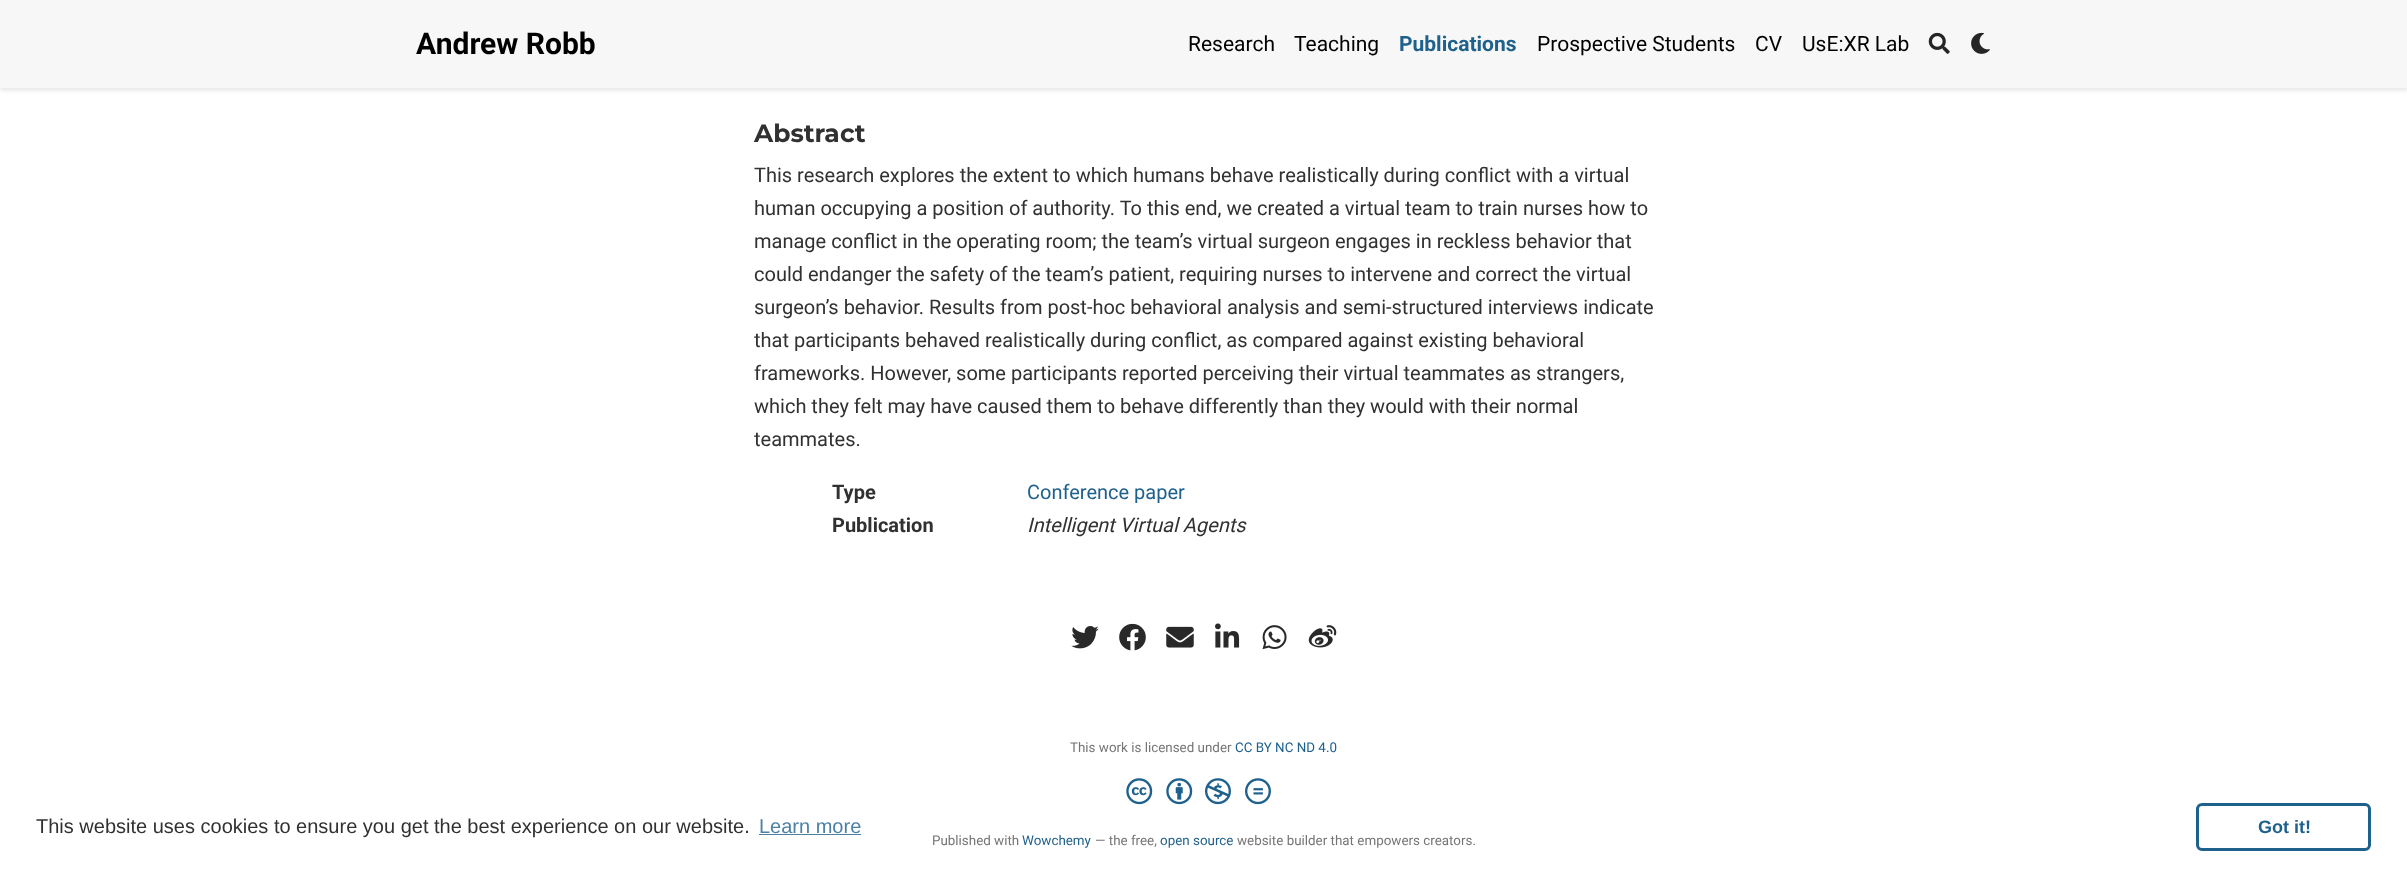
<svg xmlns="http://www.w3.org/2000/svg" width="2407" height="871">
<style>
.a{font:bold 30px Roboto;fill:#000}
.b{font:21px Roboto;fill:#000}
.c{font:bold 21px Roboto;fill:#1f618d}
.d{font:bold 25px Montserrat;fill:#313131}
.e{font:20px Roboto;fill:#313131}
.f{font:bold 20px Roboto;fill:#313131}
.g{font:20px Roboto;fill:#1f618d}
.h{font:italic 20px Roboto;fill:#313131}
.i{font:13.4px Roboto;fill:#757575}
.j{font:13.4px Roboto;fill:#1f618d}
.k{font:20px Liberation Sans;fill:#313131}
.l{font:20px Liberation Sans;fill:#4c81a4}
.m{font:bold 18px Liberation Sans;fill:#1f618d}
</style>
<rect width="100%" height="100%" fill="#fff"/>
<path fill="#0000001c" filter="blur(2.5px)" d="M0 3h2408v87H0z"/>
<path fill="#f7f7f7" d="M0 0h2407v88H0z"/>
<image href="1.png" x="1928" y="32" width="22" height="22"/>
<image href="2.png" x="1971" y="32" width="19" height="22"/>
<image href="3.png" x="1071" y="626" width="28" height="23"/>
<image href="4.png" x="1119" y="623" width="27" height="28"/>
<image href="5.png" x="1166" y="626" width="28" height="22"/>
<image href="6.png" x="1215" y="623" width="25" height="25"/>
<image href="7.png" x="1262" y="625" width="25" height="25"/>
<image href="8.png" x="1308" y="625" width="29" height="23"/>
<image href="9.png" x="1126" y="778" width="27" height="27"/>
<image href="10.png" x="1166" y="778" width="27" height="27"/>
<image href="11.png" x="1205" y="778" width="26" height="27"/>
<image href="12.png" x="1245" y="778" width="26" height="27"/>
<path fill="#4c81a4" d="M759 834h102v1H759z"/>
<rect fill="none" stroke="#1f618d" stroke-width="3" x="2197.5" y="804.5" width="172" height="45" rx="4.5"/>
<text class="a" x="416" y="54">Andrew Robb</text>
<text class="b" x="1188" y="51">Research</text>
<text class="b" x="1294" y="51">Teaching</text>
<text class="c" x="1399" y="51">Publications</text>
<text class="b" x="1537" y="51">Prospective Students</text>
<text class="b" x="1755" y="51">CV</text>
<text class="b" x="1802" y="51">UsE:XR Lab</text>
<text class="d" x="754" y="142">Abstract</text>
<text class="e" x="754" y="182">This research explores the extent to which humans behave realistically during conflict with a virtual</text>
<text class="e" x="754" y="215">human occupying a position of authority. To this end, we created a virtual team to train nurses how to</text>
<text class="e" x="754" y="248">manage conflict in the operating room; the team’s virtual surgeon engages in reckless behavior that</text>
<text class="e" x="754" y="281">could endanger the safety of the team’s patient, requiring nurses to intervene and correct the virtual</text>
<text class="e" x="754" y="314">surgeon’s behavior. Results from post-hoc behavioral analysis and semi-structured interviews indicate</text>
<text class="e" x="754" y="347">that participants behaved realistically during conflict, as compared against existing behavioral</text>
<text class="e" x="754" y="380">frameworks. However, some participants reported perceiving their virtual teammates as strangers,</text>
<text class="e" x="754" y="413">which they felt may have caused them to behave differently than they would with their normal</text>
<text class="e" x="754" y="446">teammates.</text>
<text class="f" x="832" y="499">Type</text>
<text class="g" x="1027" y="499">Conference paper</text>
<text class="f" x="832" y="532">Publication</text>
<text class="h" x="1027" y="532">Intelligent Virtual Agents</text>
<text class="i" x="1070" y="752">This work is licensed under</text>
<text class="j" x="1235" y="752">CC BY NC ND 4.0</text>
<text class="i" x="932" y="845">Published with</text>
<text class="j" x="1022" y="845">Wowchemy</text>
<text class="i" x="1095" y="845">— the free,</text>
<text class="j" x="1160" y="845">open source</text>
<text class="i" x="1237" y="845">website builder that empowers creators.</text>
<text class="k" x="36" y="833">This website uses cookies to ensure you get the best experience on our website.</text>
<text class="l" x="759" y="833">Learn more</text>
<text class="m" x="2258" y="833">Got it!</text>
</svg>
